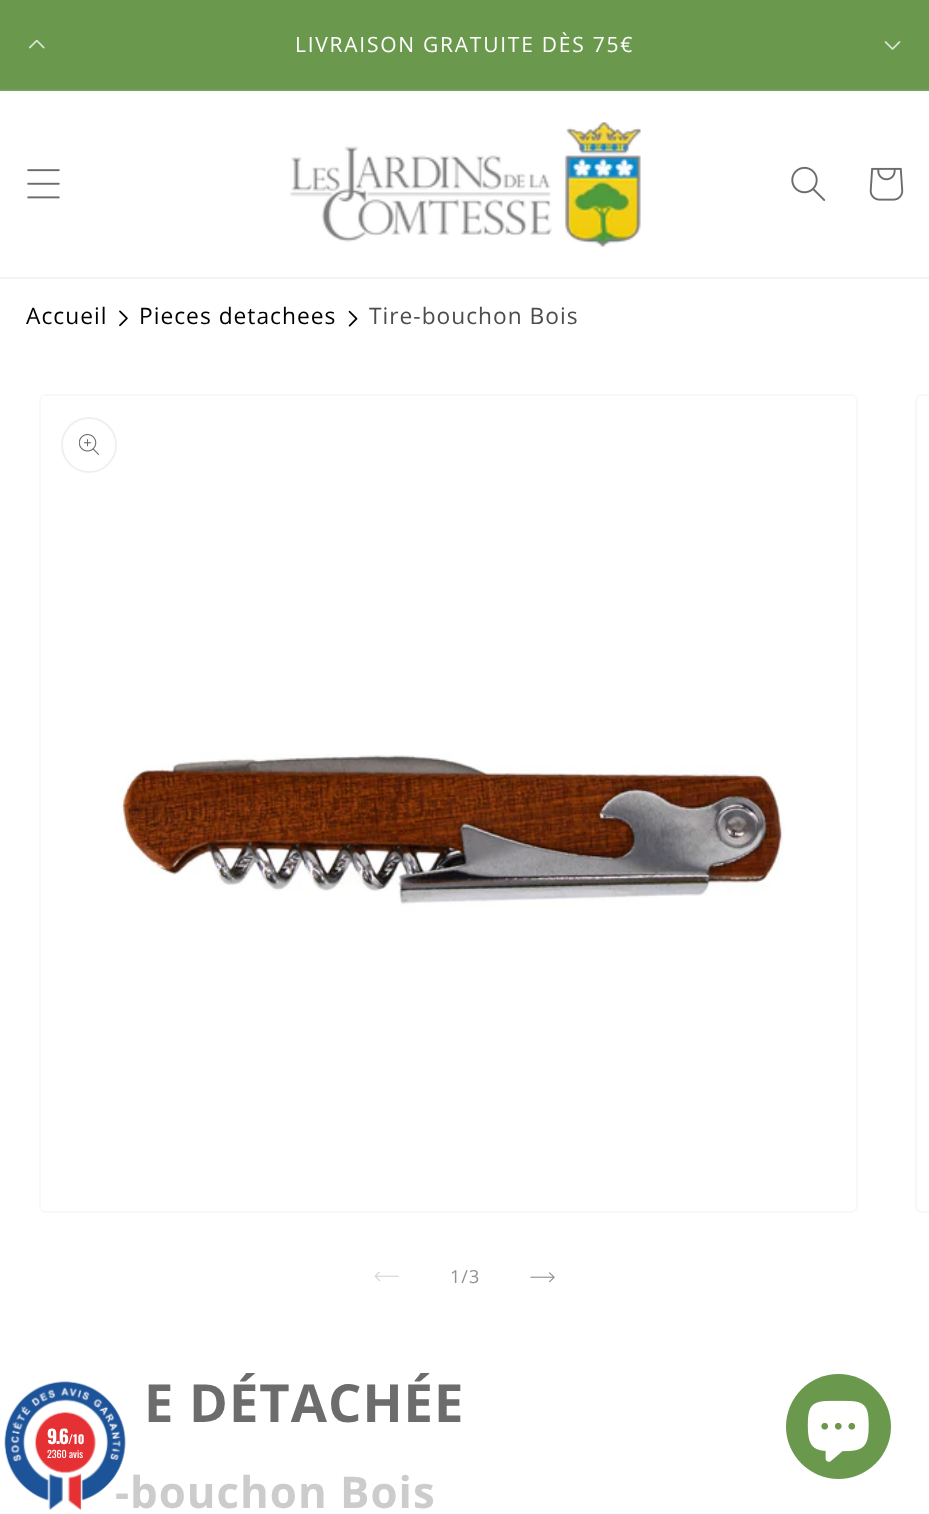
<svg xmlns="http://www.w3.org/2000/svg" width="929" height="1514">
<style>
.a{font:21px Open Sans;letter-spacing:1.75px;fill:#fff}
.b{font:22.75px Open Sans;letter-spacing:1px;fill:#000}
.c{font:22.75px Open Sans;letter-spacing:1px;fill:#4d4d4d}
.d{font:18px Open Sans;letter-spacing:1px;fill:#919191}
.e{font:bold 52.5px Open Sans;letter-spacing:1px;fill:#6c6c6c}
.f{font:bold 43.75px Open Sans;letter-spacing:1px;fill:#ccc}
.g{font:bold 19px Oswald;letter-spacing:-1.5px;fill:#fff}
.h{font:bold 12px Oswald;fill:#fff}
.i{font:10px Oswald;fill:#fff}
</style>
<rect width="100%" height="100%" fill="#fff"/>
<path fill="#6a984d" d="M0 0h929v89H0z"/>
<path fill="#76a05b" d="M0 89h929v2H0z"/>
<image href="1.png" x="28" y="40" width="17" height="9"/>
<image href="2.png" x="884" y="41" width="17" height="9"/>
<path fill="#f3f3f3" d="M0 277h929v2H0z"/>
<image href="3.png" x="27" y="169" width="33" height="30"/>
<image href="4.png" x="290" y="122" width="351" height="125"/>
<image href="5.png" x="791" y="166" width="35" height="35"/>
<image href="6.png" x="869" y="167" width="35" height="34"/>
<image href="7.png" x="119" y="310" width="9" height="17"/>
<image href="8.png" x="348" y="310" width="10" height="17"/>
<rect fill="none" stroke="#f8f8f8" stroke-width="2" x="40" y="395" width="817" height="817" rx="6"/>
<image href="9.png" x="41" y="396" width="744" height="813"/>
<circle fill="none" stroke="#f0f0f0" stroke-width="2" cx="89" cy="445" r="27"/>
<image href="10.png" x="79" y="434" width="20" height="21"/>
<rect fill="none" stroke="#f8f8f8" stroke-width="2" x="916" y="395" width="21" height="817" rx="6"/>
<image href="11.png" x="374" y="1272" width="25" height="10"/>
<image href="12.png" x="530" y="1272" width="25" height="11"/>
<circle fill="#6a984d" cx="838.5" cy="1426.5" r="52.5"/>
<image href="13.png" x="807" y="1400" width="62" height="62"/>
<text class="a" x="295" y="52">LIVRAISON GRATUITE DÈS 75€</text>
<text class="b" x="26" y="324">Accueil</text>
<text class="b" x="139" y="324">Pieces detachees</text>
<text class="c" x="369" y="324">Tire-bouchon Bois</text>
<text class="d" x="450" y="1283">1/3</text>
<text class="e" x="144" y="1422">E DÉTACHÉE</text>
<text class="f" x="115" y="1508">-bouchon Bois</text>
<image href="14.png" x="4" y="1381" width="122" height="129"/>
<image href="15.png" x="4" y="1381" width="122" height="127"/>
<text class="g" x="47" y="1444">9.6</text>
<text class="h" x="68" y="1444">/10</text>
<text class="i" x="47" y="1458">2360 avis</text>
</svg>
